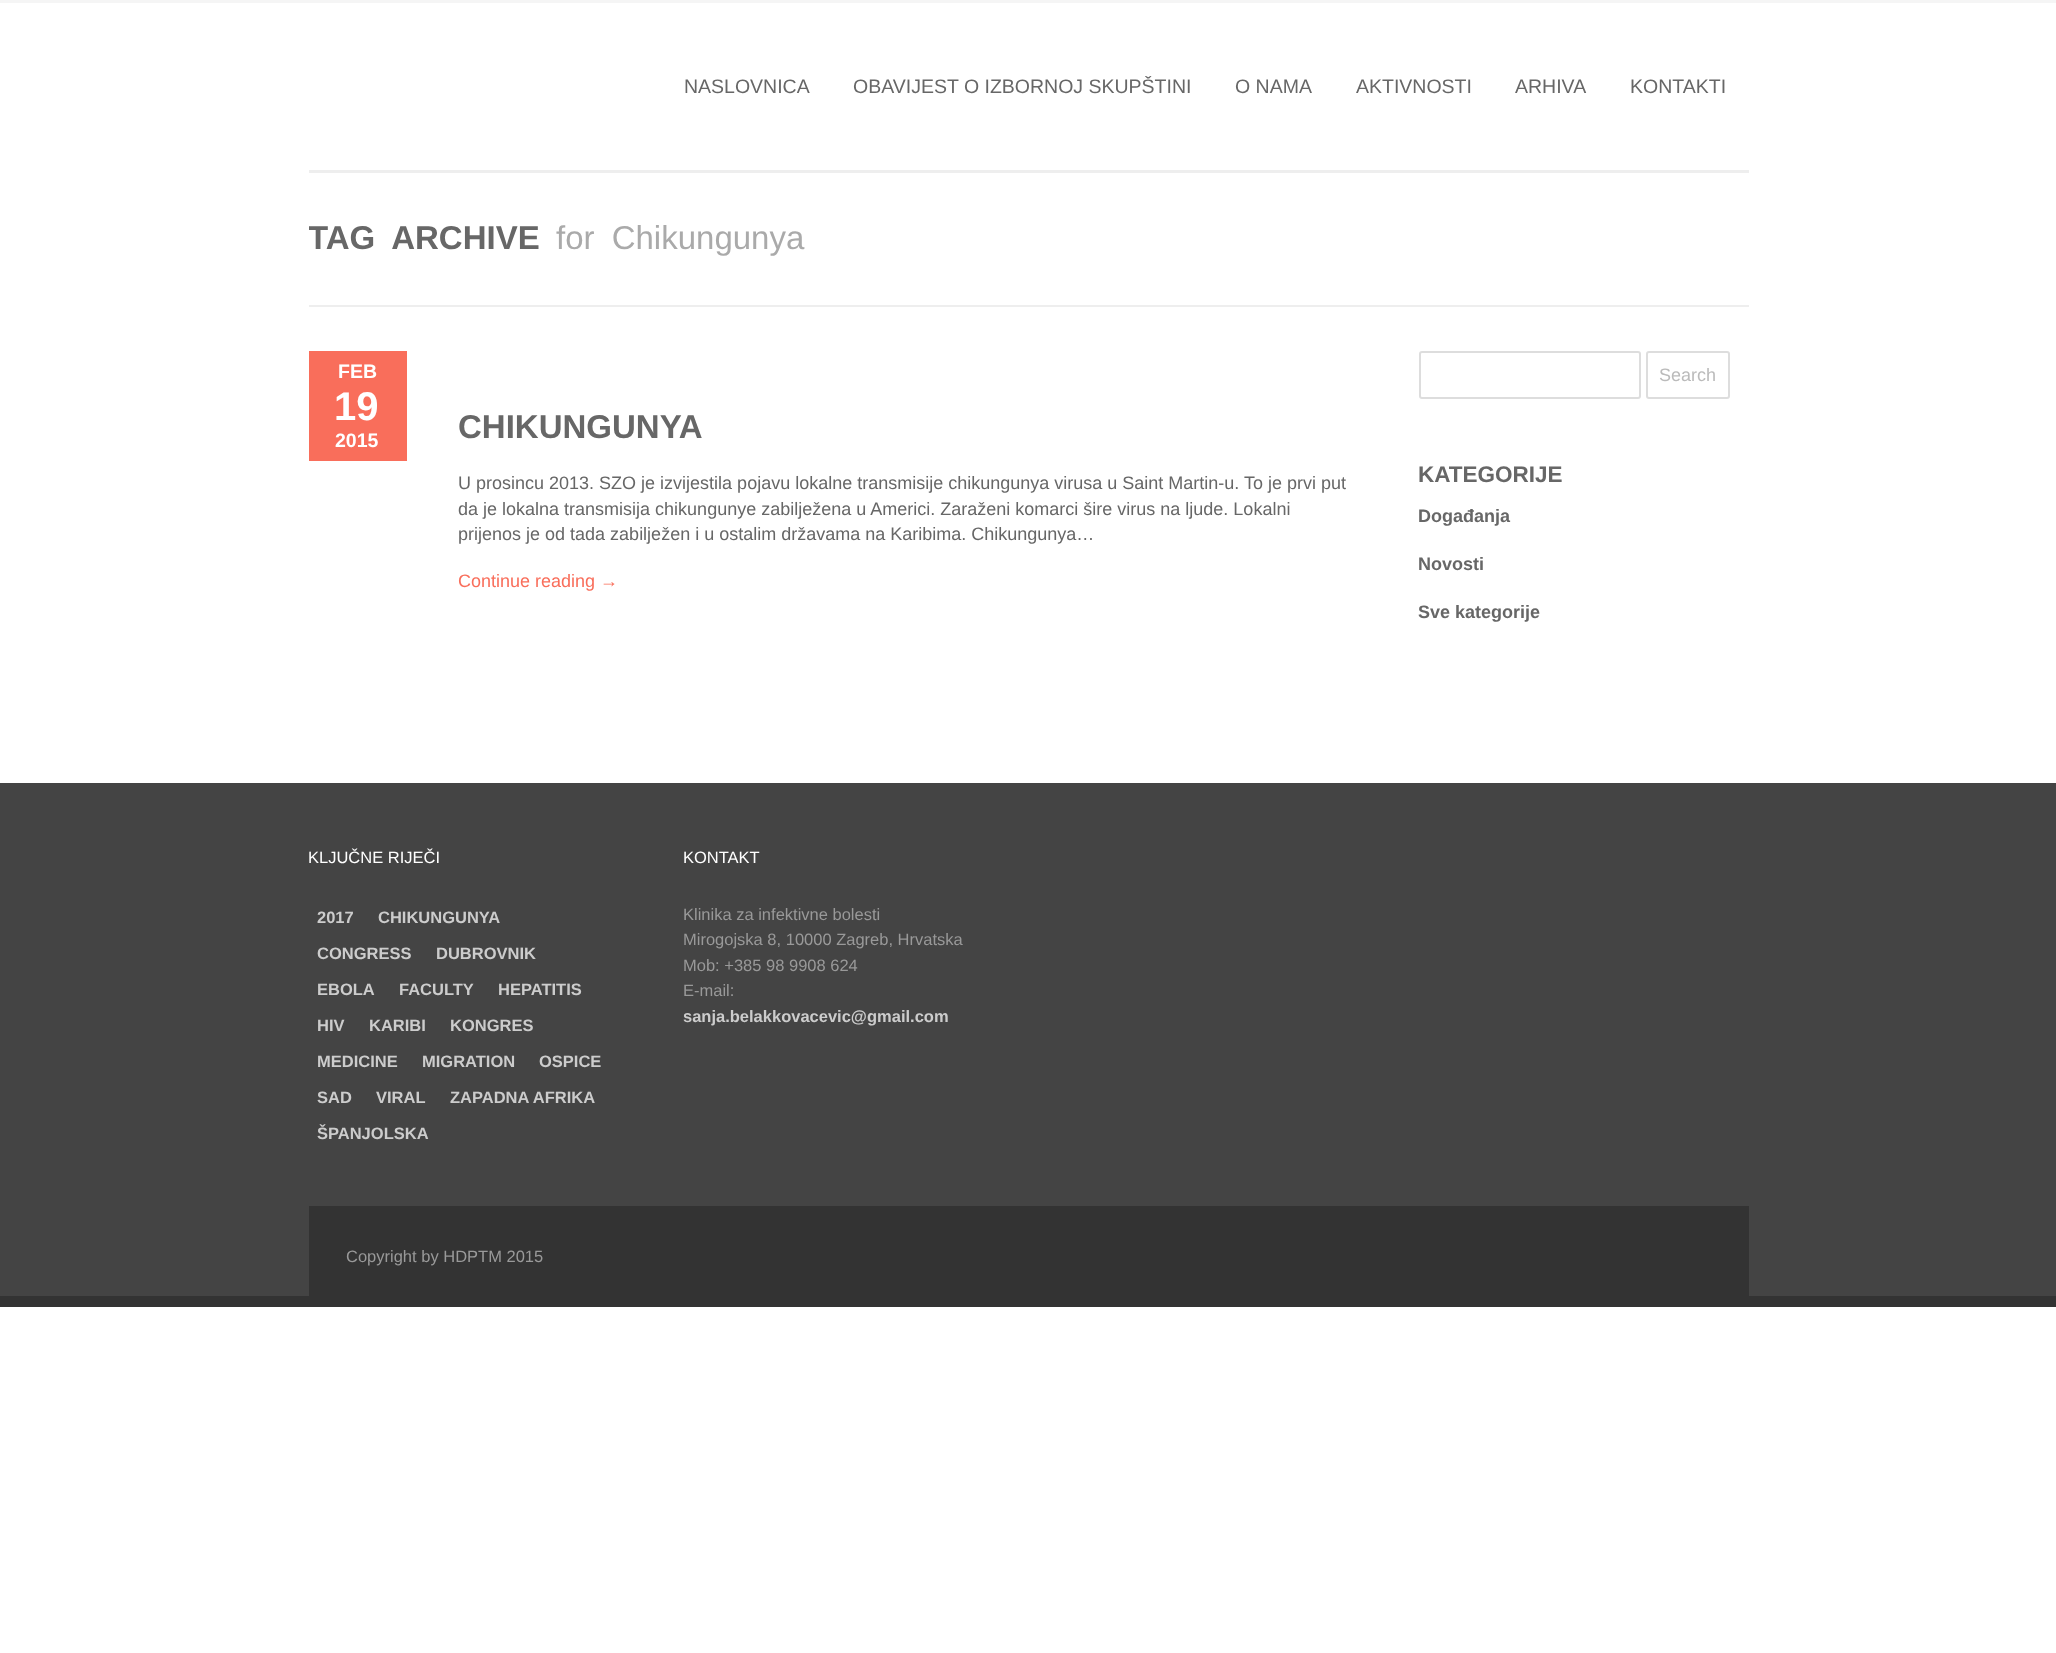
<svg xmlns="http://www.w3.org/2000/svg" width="2056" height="1653">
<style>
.a{font:19.5px Liberation Sans;fill:#676767}
.b{font:bold 33px Liberation Sans;fill:#676767}
.c{font:33px Liberation Sans;fill:#aaa}
.d{font:bold 19.5px Liberation Sans;fill:#fff}
.e{font:bold 40px Liberation Sans;fill:#fff}
.f{font:18px Liberation Sans;fill:#676767}
.g{font:18px Liberation Sans;fill:#f96e5b}
.h{font:18px Liberation Sans;fill:#bbb}
.i{font:bold 22.5px Liberation Sans;fill:#676767}
.j{font:bold 18px Liberation Sans;fill:#676767}
.k{font:16.5px Liberation Sans;fill:#fff}
.l{font:bold 16.5px Liberation Sans;fill:#ccc}
.m{font:16.5px Liberation Sans;fill:#999}
</style>
<defs>
<clipPath id="clip1"><path d="M309 173h1440v132H309z"/></clipPath>
</defs>
<rect width="100%" height="100%" fill="#fff"/>
<path fill="#f5f5f5" d="M0 0h2056v3H0z"/>
<path fill="#eee" d="M309 170h1440v3H309z"/>
<path fill="#eee" d="M309 305h1440v2H309z"/>
<path fill="#f96e5b" d="M309 351h98v110H309z"/>
<rect fill="none" stroke="#ddd" stroke-width="2" x="1420" y="352" width="220" height="46" rx="2"/>
<rect fill="none" stroke="#ddd" stroke-width="2" x="1647" y="352" width="82" height="46" rx="2"/>
<path fill="#444" d="M0 783h2056v513H0z"/>
<path fill="#333" d="M0 1296h2056v11H0z"/>
<path fill="#333" d="M309 1206h1440v90H309z"/>
<text class="a" x="684" y="93">NASLOVNICA</text>
<text class="a" x="853" y="93">OBAVIJEST O IZBORNOJ SKUPŠTINI</text>
<text class="a" x="1235" y="93">O NAMA</text>
<text class="a" x="1356" y="93">AKTIVNOSTI</text>
<text class="a" x="1515" y="93">ARHIVA</text>
<text class="a" x="1630" y="93">KONTAKTI</text>
<g clip-path="url(#clip1)">
<text class="b" x="308" y="249" word-spacing="8">TAG ARCHIVE</text>
</g>
<text class="c" x="556" y="249" word-spacing="8">for Chikungunya</text>
<text class="d" x="338" y="378">FEB</text>
<text class="e" x="334" y="420">19</text>
<text class="d" x="335" y="447">2015</text>
<text class="b" x="458" y="438">CHIKUNGUNYA</text>
<text class="f" x="458" y="489">U prosincu 2013. SZO je izvijestila pojavu lokalne transmisije chikungunya virusa u Saint Martin-u. To je prvi put</text>
<text class="f" x="458" y="515">da je lokalna transmisija chikungunye zabilježena u Americi. Zaraženi komarci šire virus na ljude. Lokalni</text>
<text class="f" x="458" y="540">prijenos je od tada zabilježen i u ostalim državama na Karibima. Chikungunya…</text>
<text class="g" x="458" y="587">Continue reading →</text>
<text class="h" x="1659" y="381">Search</text>
<text class="i" x="1418" y="482">KATEGORIJE</text>
<text class="j" x="1418" y="522">Događanja</text>
<text class="j" x="1418" y="570">Novosti</text>
<text class="j" x="1418" y="618">Sve kategorije</text>
<text class="k" x="308" y="863">KLJUČNE RIJEČI</text>
<text class="l" x="317" y="923">2017</text>
<text class="l" x="378" y="923">CHIKUNGUNYA</text>
<text class="l" x="317" y="959">CONGRESS</text>
<text class="l" x="436" y="959">DUBROVNIK</text>
<text class="l" x="317" y="995">EBOLA</text>
<text class="l" x="399" y="995">FACULTY</text>
<text class="l" x="498" y="995">HEPATITIS</text>
<text class="l" x="317" y="1031">HIV</text>
<text class="l" x="369" y="1031">KARIBI</text>
<text class="l" x="450" y="1031">KONGRES</text>
<text class="l" x="317" y="1067">MEDICINE</text>
<text class="l" x="422" y="1067">MIGRATION</text>
<text class="l" x="539" y="1067">OSPICE</text>
<text class="l" x="317" y="1103">SAD</text>
<text class="l" x="376" y="1103">VIRAL</text>
<text class="l" x="450" y="1103">ZAPADNA AFRIKA</text>
<text class="l" x="317" y="1139">ŠPANJOLSKA</text>
<text class="k" x="683" y="863">KONTAKT</text>
<text class="m" x="683" y="920">Klinika za infektivne bolesti</text>
<text class="m" x="683" y="945">Mirogojska 8, 10000 Zagreb, Hrvatska</text>
<text class="m" x="683" y="971">Mob: +385 98 9908 624</text>
<text class="m" x="683" y="996">E-mail:</text>
<text class="l" x="683" y="1022">sanja.belakkovacevic@gmail.com</text>
<text class="m" x="346" y="1262">Copyright by HDPTM 2015</text>
</svg>
